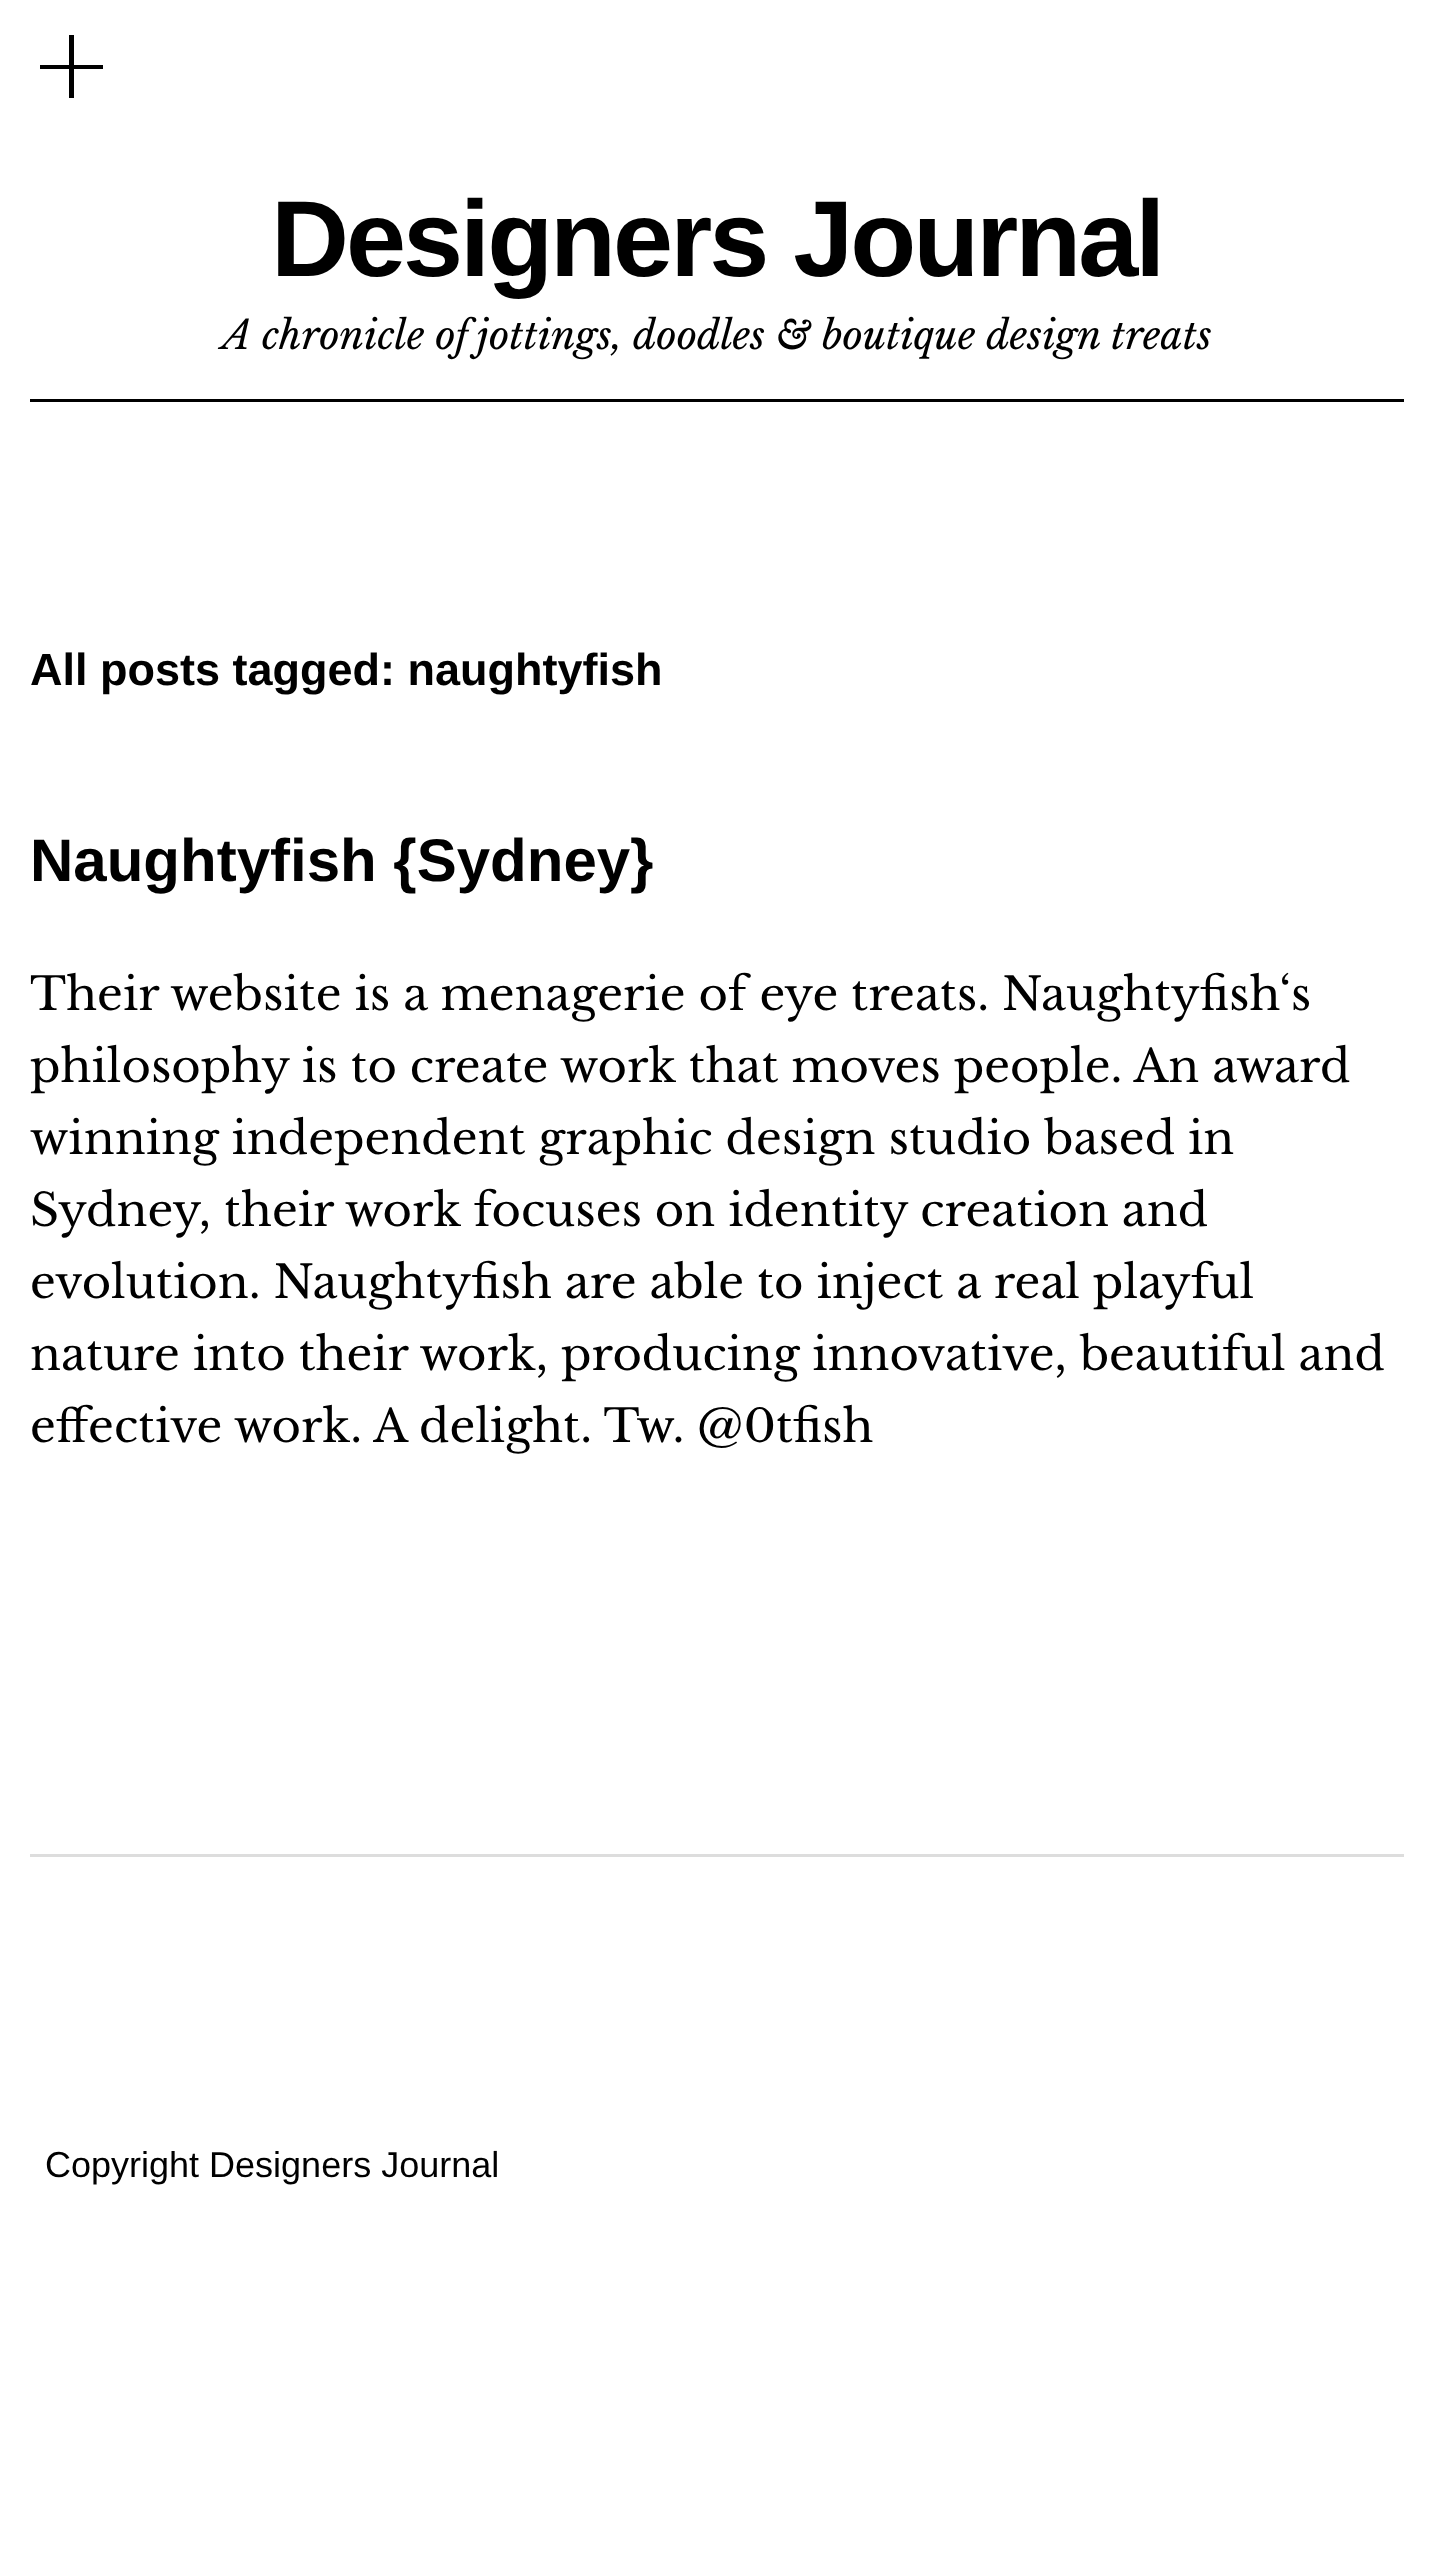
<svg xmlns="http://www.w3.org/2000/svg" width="1434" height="2561">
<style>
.a{font:bold 108px Liberation Sans;letter-spacing:-3px;fill:#000}
.b{font:italic 39px Libre Baskerville;fill:#000}
.c{font:bold 45px Liberation Sans;fill:#000}
.d{font:bold 60px Liberation Sans;fill:#000}
.e{font:45px Libre Baskerville;fill:#000}
.f{font:36px Liberation Sans;fill:#000}
</style>
<rect width="100%" height="100%" fill="#fff"/>
<path fill="#000" d="M103 69h-29v29h-5v-29h-29v-4h29v-30h5v30h29z"/>
<path fill="#000" d="M30 399h1374v3H30z"/>
<path fill="#ddd" d="M30 1854h1374v3H30z"/>
<text class="a" x="271" y="276">Designers Journal</text>
<text class="b" x="222" y="349">A chronicle of jottings, doodles &amp; boutique design treats</text>
<text class="c" x="30" y="685">All posts tagged: naughtyfish</text>
<text class="d" x="30" y="881">Naughtyfish {Sydney}</text>
<text class="e" x="30" y="1010">Their website is a menagerie of eye treats. Naughtyfish‘s</text>
<text class="e" x="30" y="1082">philosophy is to create work that moves people. An award</text>
<text class="e" x="30" y="1154">winning independent graphic design studio based in</text>
<text class="e" x="30" y="1226">Sydney, their work focuses on identity creation and</text>
<text class="e" x="30" y="1298">evolution. Naughtyfish are able to inject a real playful</text>
<text class="e" x="30" y="1370">nature into their work, producing innovative, beautiful and</text>
<text class="e" x="30" y="1442">effective work. A delight. Tw. @0tfish</text>
<text class="f" x="45" y="2177">Copyright Designers Journal</text>
</svg>
